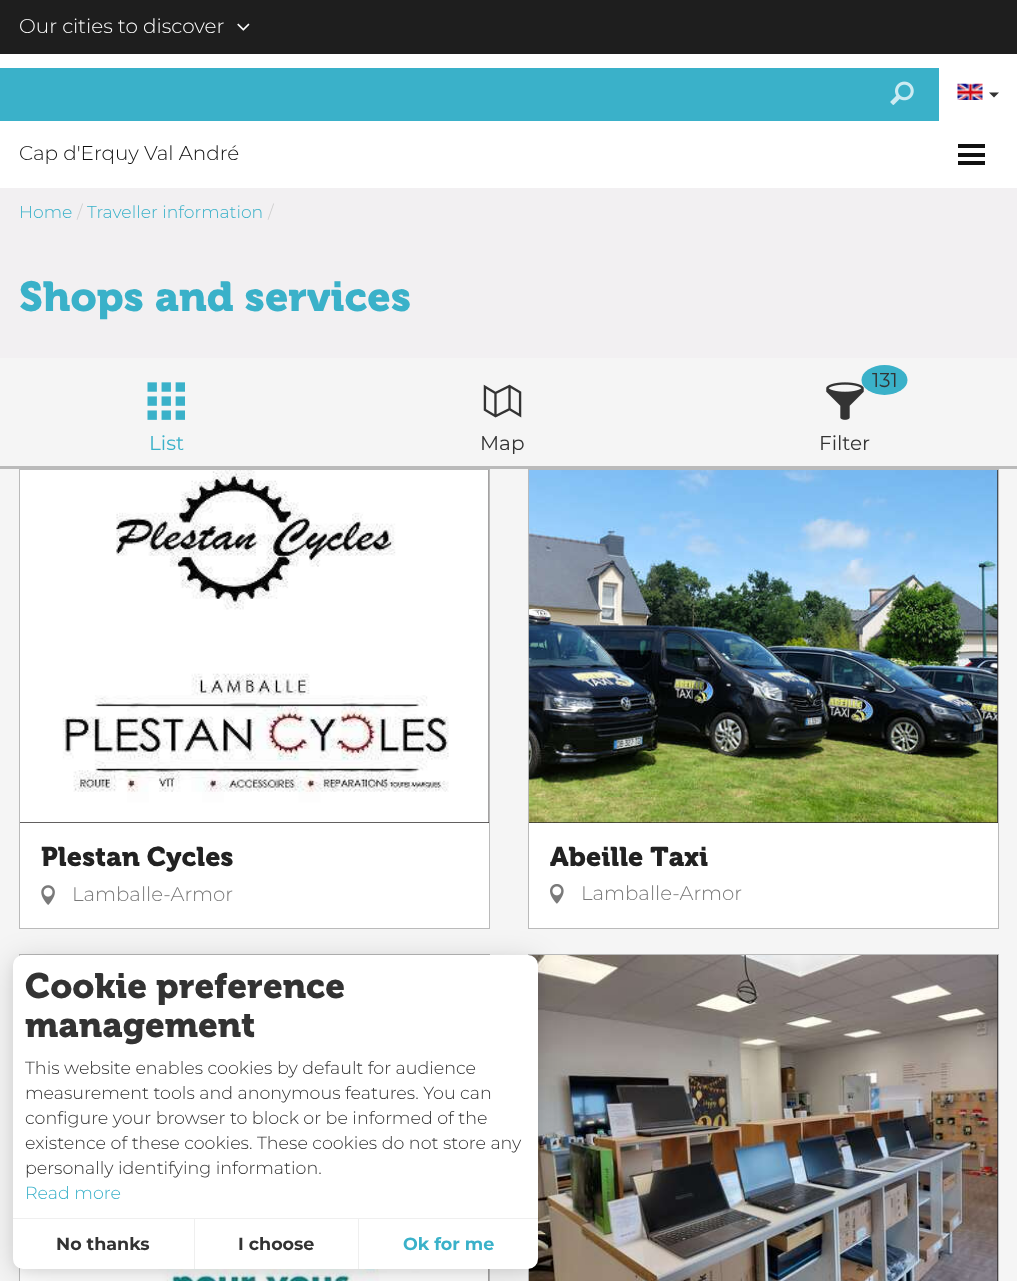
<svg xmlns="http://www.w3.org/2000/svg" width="1017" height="1281">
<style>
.a{font:100 20px Montserrat;fill:#fff}
.b{font:100 20px Montserrat;fill:#111}
.c{font:100 17.25px Montserrat;fill:#3ab1c9}
.d{font:100 17.25px Montserrat;fill:#ccc}
.e{font:600 41.5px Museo;fill:#3ab1c9}
.f{font:100 20px 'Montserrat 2';fill:#3ab1c9}
.g{font:100 20px 'Montserrat 2';fill:#333}
.h{font:600 27px Museo;fill:#222}
.i{font:100 19.75px Montserrat;fill:#7a7a7a}
.j{font:600 35px Museo;fill:#333}
.k{font:100 17.5px Montserrat;fill:#333}
.l{font:100 17.5px Montserrat;fill:#3ab1c9}
.m{font:100 17.5px 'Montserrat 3';fill:#333}
.n{font:100 17.5px 'Montserrat 3';fill:#3ab1c9}
</style>
<rect width="100%" height="100%" fill="#fff"/>
<path fill="#1e1e1e" d="M0 0h1017v54H0z"/>
<image href="1.png" x="237" y="23" width="13" height="8"/>
<path fill="#3ab1c9" d="M0 68h939v53H0z"/>
<image href="2.png" x="890" y="81" width="24" height="24"/>
<image href="3.png" x="957" y="83" width="26" height="17"/>
<path fill="#333" d="M989 92.5h10l-5 5z"/>
<path fill="#111" d="M958 144h27v4H958z"/>
<path fill="#111" d="M958 153h27v4H958z"/>
<path fill="#111" d="M958 161h27v4H958z"/>
<path fill="#f2f0f2" d="M0 188h1017v170H0z"/>
<path fill="#f5f5f5" d="M0 358h1017v108H0z"/>
<path fill="#bababa" d="M0 466h1017v3H0z"/>
<image href="4.png" x="147" y="382" width="38" height="38"/>
<image href="5.png" x="483" y="384" width="39" height="34"/>
<image href="6.png" x="826" y="382" width="38" height="38"/>
<ellipse fill="#3ab1c9" cx="884.5" cy="380" rx="23" ry="15"/>
<path fill="#f5f5f5" d="M0 469h1017v812H0z"/>
<path fill="#2e2b2b" d="M20 470h469v353H20z"/>
<path fill="#bababa" d="M19 469h471v1H19z"/>
<path fill="#bababa" d="M489 469h1v460H489z"/>
<path fill="#bababa" d="M19 469h1v354H19z"/>
<image href="7.png" x="20" y="470" width="469" height="353"/>
<path fill="#fff" d="M20 823h469v105H20z"/>
<path fill="#bababa" d="M19 928h471v1H19z"/>
<path fill="#bababa" d="M19 823h1v106H19z"/>
<image href="8.png" x="41" y="885" width="14" height="20"/>
<path fill="#2e2b2b" d="M529 470h469v353H529z"/>
<path fill="#bababa" d="M528 469h471v1H528z"/>
<path fill="#bababa" d="M998 469h1v460H998z"/>
<path fill="#bababa" d="M528 469h1v354H528z"/>
<image href="9.png" x="528" y="470" width="470" height="353"/>
<path fill="#fff" d="M529 823h469v105H529z"/>
<path fill="#bababa" d="M528 928h471v1H528z"/>
<path fill="#bababa" d="M528 823h1v106H528z"/>
<image href="10.png" x="550" y="884" width="14" height="20"/>
<path fill="#2e2b2b" d="M488 1269h1v12H488z"/>
<path fill="#bababa" d="M19 954h471v1H19z"/>
<path fill="#bababa" d="M489 954h1v327H489z"/>
<path fill="#bababa" d="M19 954h1v327H19z"/>
<image href="11.png" x="20" y="955" width="469" height="326"/>
<path fill="#2e2b2b" d="M997 955h1v326H997z"/>
<path fill="#bababa" d="M528 954h471v1H528z"/>
<path fill="#bababa" d="M998 954h1v327H998z"/>
<path fill="#bababa" d="M528 954h1v327H528z"/>
<image href="12.png" x="528" y="955" width="470" height="326"/>
<rect fill="#0000000d" filter="blur(4px)" x="13" y="958" width="525" height="313" rx="10"/>
<rect fill="#00000026" filter="blur(15px)" x="13" y="960" width="525" height="314" rx="10"/>
<rect fill="#fff" x="13" y="955" width="525" height="314" rx="10"/>
<path fill="#efefef" d="M13 1218h525v1H13z"/>
<path fill="#efefef" d="M194 1219h1v50H194z"/>
<path fill="#efefef" d="M358 1219h1v50H358z"/>
<text class="a" x="19" y="33">Our cities to discover</text>
<text class="b" x="19" y="160">Cap d'Erquy Val André</text>
<text class="c" x="19" y="218">Home</text>
<text class="d" x="77" y="218">/</text>
<text class="c" x="87" y="218">Traveller information</text>
<text class="d" x="268" y="218">/</text>
<text class="e" x="19" y="311">Shops and services</text>
<text class="f" x="149" y="450">List</text>
<text class="g" x="480" y="450">Map</text>
<text class="g" x="872" y="387">131</text>
<text class="g" x="819" y="450">Filter</text>
<text class="h" x="41" y="866">Plestan Cycles</text>
<text class="i" x="72" y="901">Lamballe-Armor</text>
<text class="h" x="550" y="866">Abeille Taxi</text>
<text class="i" x="581" y="900">Lamballe-Armor</text>
<text class="j" x="25" y="998">Cookie preference</text>
<text class="j" x="25" y="1037">management</text>
<text class="k" x="25" y="1074">This website enables cookies by default for audience</text>
<text class="k" x="25" y="1099">measurement tools and anonymous features. You can</text>
<text class="k" x="25" y="1124">configure your browser to block or be informed of the</text>
<text class="k" x="25" y="1149">existence of these cookies. These cookies do not store any</text>
<text class="k" x="25" y="1174">personally identifying information.</text>
<text class="l" x="25" y="1199">Read more</text>
<text class="m" x="56" y="1250">No thanks</text>
<text class="m" x="238" y="1250">I choose</text>
<text class="n" x="403" y="1250">Ok for me</text>
</svg>
